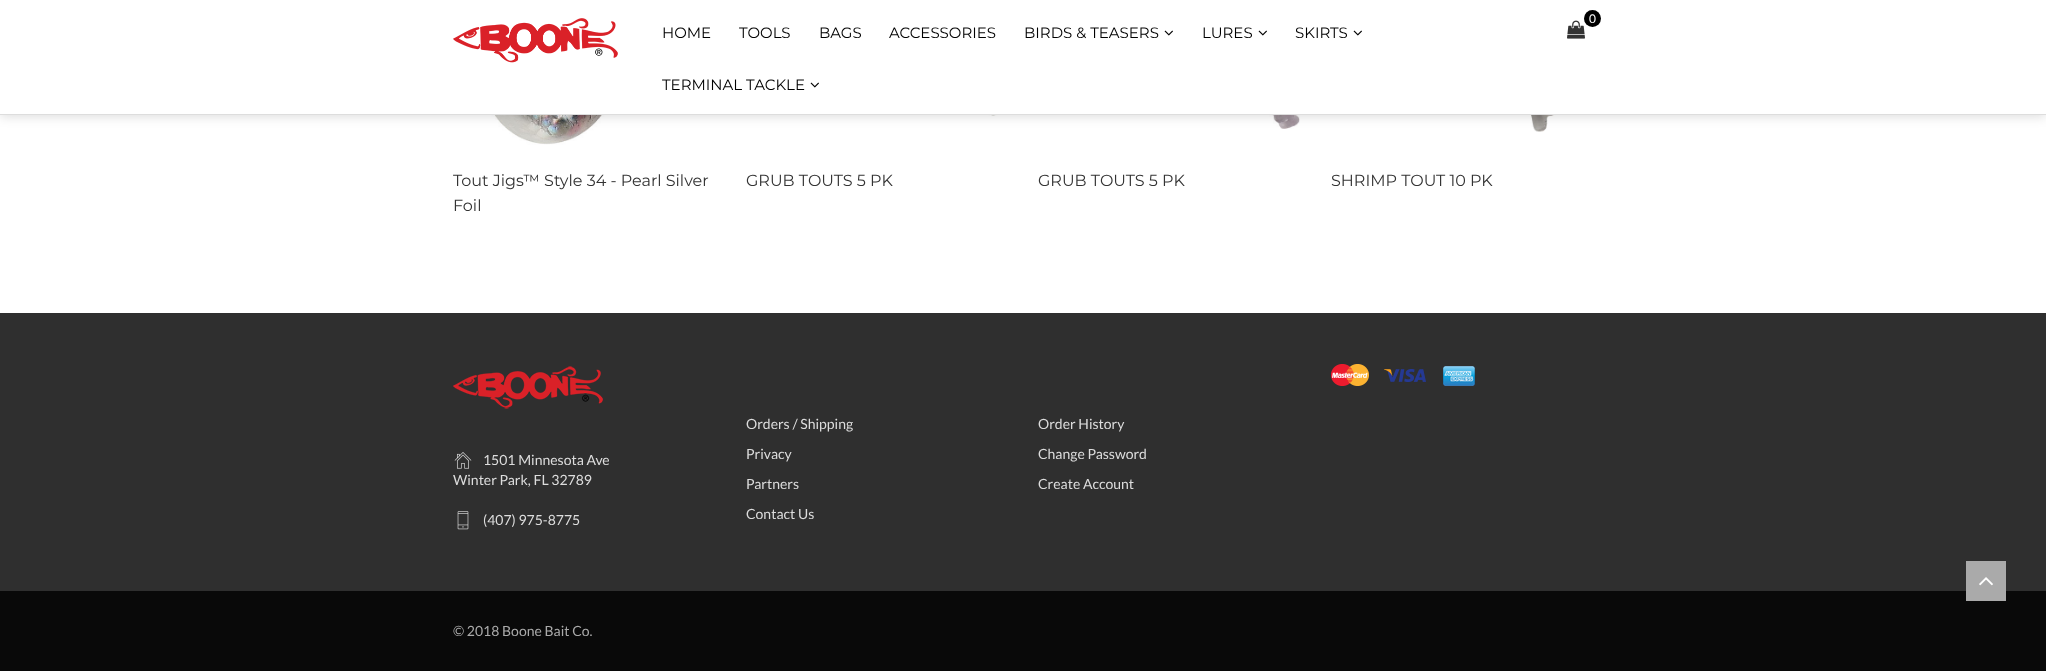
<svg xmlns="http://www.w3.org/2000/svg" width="2046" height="671">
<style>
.a{font:15px Montserrat;fill:#000}
.b{font:12px Lato;fill:#fff}
.c{font:16px Montserrat;fill:#333}
.d{font:14px Lato;fill:#ddd}
.e{font:14px Lato;fill:#aaa}
</style>
<rect width="100%" height="100%" fill="#fff"/>
<image href="4.png" x="459" y="115" width="242" height="30"/>
<image href="5.png" x="828" y="115" width="178" height="1"/>
<image href="6.png" x="1134" y="115" width="166" height="14"/>
<image href="7.png" x="1424" y="115" width="169" height="17"/>
<path fill="#00000026" filter="blur(6px)" d="M0 1h2046v115H0z"/>
<path fill="#fff" d="M0 0h2046v114H0z"/>
<path fill="#ddd" d="M0 114h2046v1H0z"/>
<image href="1.png" x="453" y="18" width="165" height="45"/>
<image href="2.png" x="1164" y="30" width="9" height="6"/>
<image href="2.png" x="1258" y="30" width="9" height="6"/>
<image href="2.png" x="1353" y="30" width="9" height="6"/>
<image href="2.png" x="810" y="82" width="9" height="6"/>
<image href="3.png" x="1567" y="20" width="18" height="19"/>
<circle fill="#000" cx="1592.5" cy="18.5" r="8.5"/>
<path fill="#2f2f2f" d="M0 313h2046v278H0z"/>
<image href="8.png" x="1331" y="364" width="144" height="22"/>
<image href="9.png" x="453" y="366" width="150" height="43"/>
<image href="10.png" x="454" y="452" width="18" height="17"/>
<image href="11.png" x="457" y="511" width="12" height="19"/>
<path fill="#090909" d="M0 591h2046v80H0z"/>
<path fill="#aaa" d="M1966 561h40v40H1966z"/>
<image href="12.png" x="1979" y="577" width="14" height="9"/>
<text class="a" x="662" y="38">HOME</text>
<text class="a" x="739" y="38">TOOLS</text>
<text class="a" x="819" y="38">BAGS</text>
<text class="a" x="889" y="38">ACCESSORIES</text>
<text class="a" x="1024" y="38">BIRDS &amp; TEASERS</text>
<text class="a" x="1202" y="38">LURES</text>
<text class="a" x="1295" y="38">SKIRTS</text>
<text class="a" x="662" y="90">TERMINAL TACKLE</text>
<text class="b" x="1589" y="23">0</text>
<text class="c" x="453" y="186">Tout Jigs™ Style 34 - Pearl Silver</text>
<text class="c" x="453" y="211">Foil</text>
<text class="c" x="746" y="186">GRUB TOUTS 5 PK</text>
<text class="c" x="1038" y="186">GRUB TOUTS 5 PK</text>
<text class="c" x="1331" y="186">SHRIMP TOUT 10 PK</text>
<text class="d" x="483" y="465">1501 Minnesota Ave</text>
<text class="d" x="453" y="485">Winter Park, FL 32789</text>
<text class="d" x="483" y="525">(407) 975-8775</text>
<text class="d" x="746" y="429">Orders / Shipping</text>
<text class="d" x="746" y="459">Privacy</text>
<text class="d" x="746" y="489">Partners</text>
<text class="d" x="746" y="519">Contact Us</text>
<text class="d" x="1038" y="429">Order History</text>
<text class="d" x="1038" y="459">Change Password</text>
<text class="d" x="1038" y="489">Create Account</text>
<text class="e" x="453" y="636">© 2018 Boone Bait Co.</text>
</svg>
